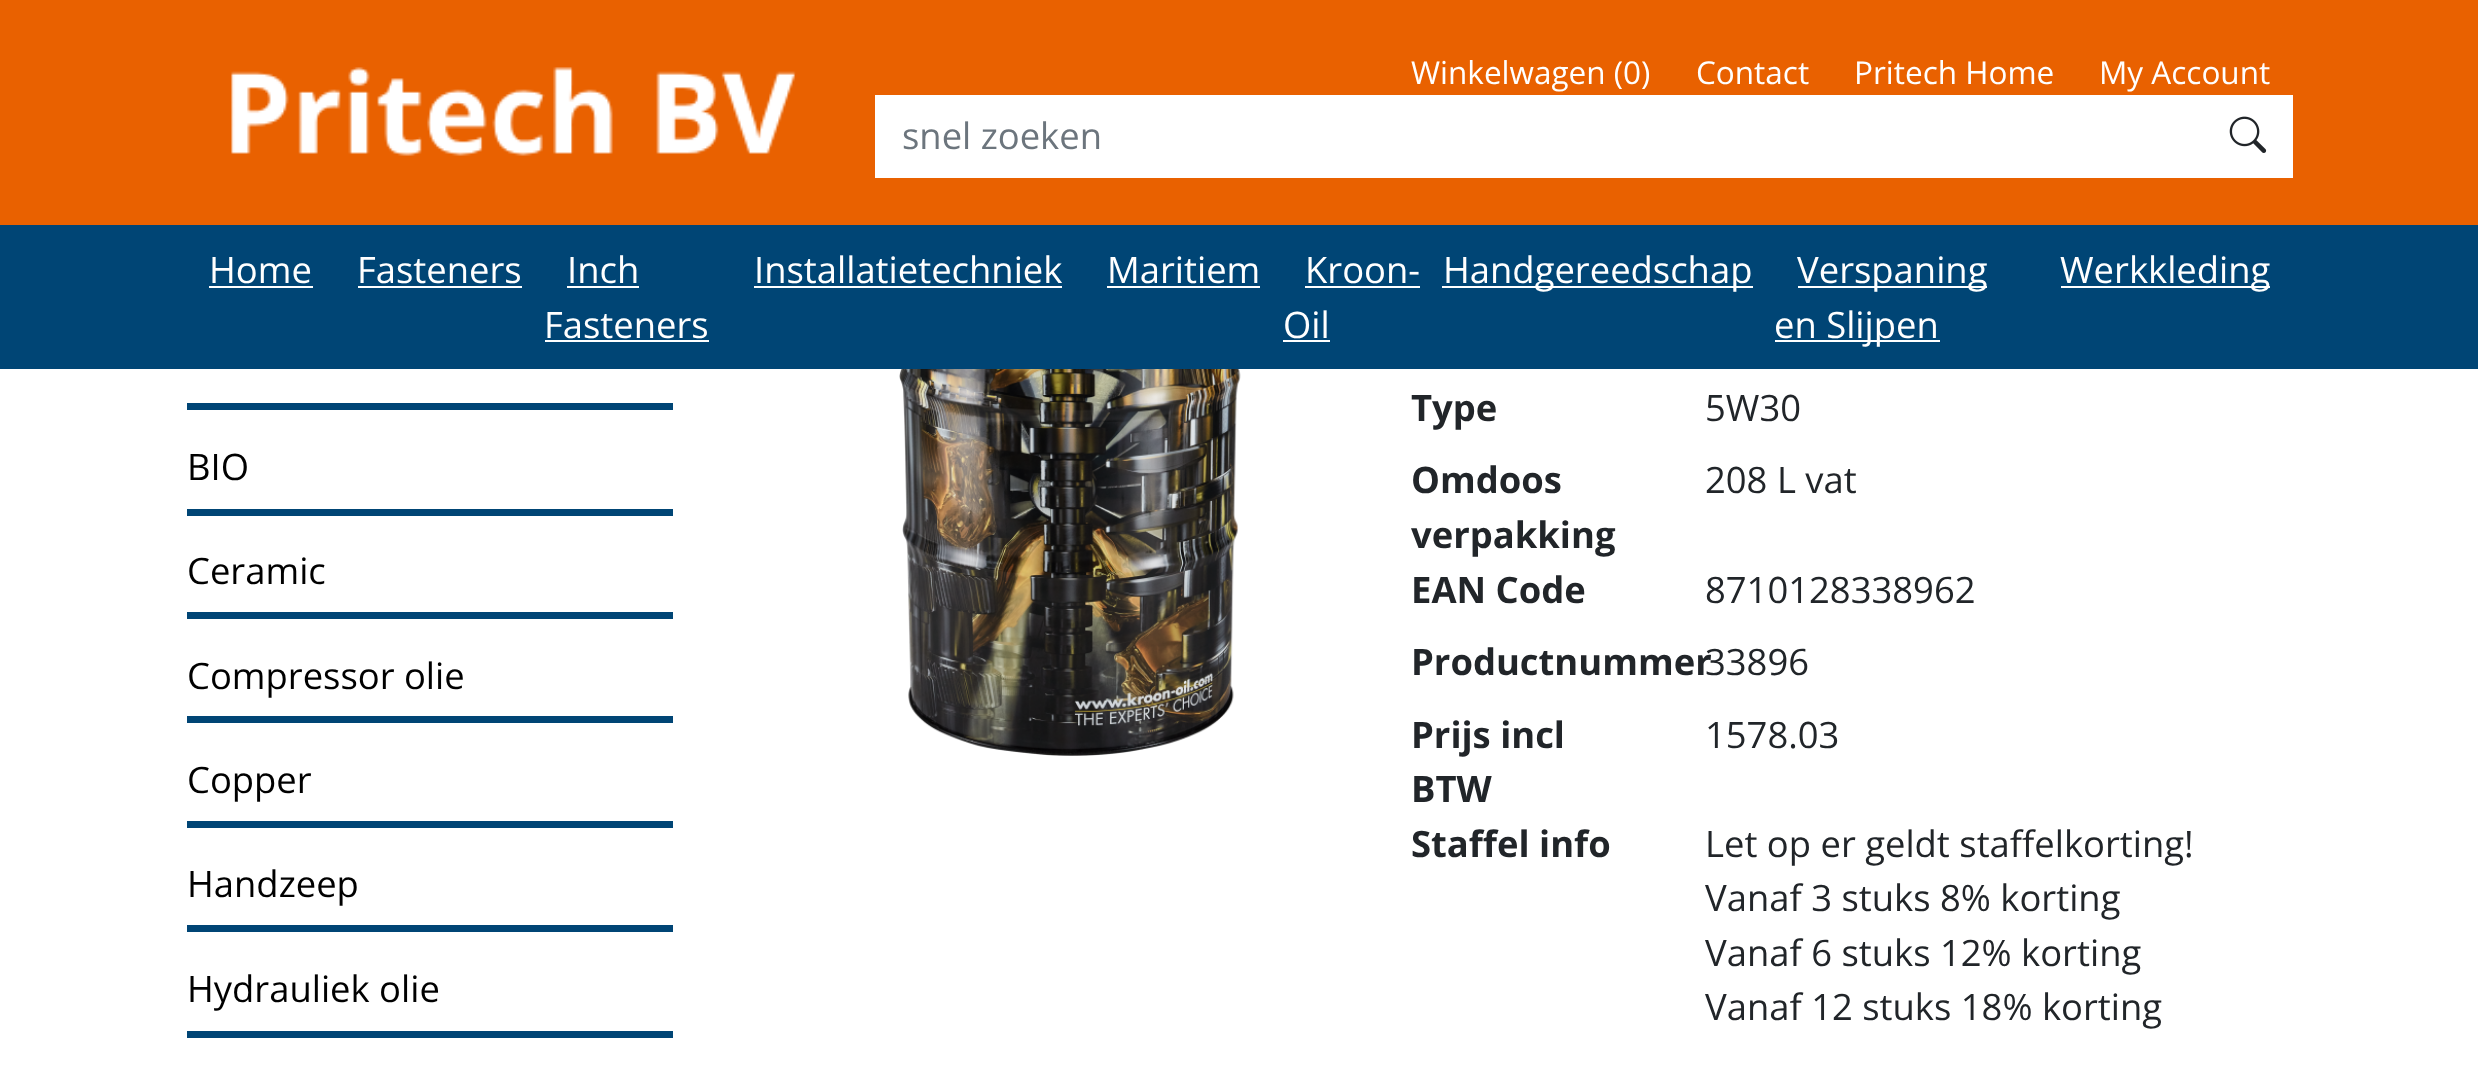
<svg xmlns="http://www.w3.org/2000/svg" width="2478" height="1072">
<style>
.a{font:31.5px Open Sans;fill:#fff}
.b{font:36.4px Open Sans;fill:#6c757d}
.c{font:36.4px Open Sans;fill:#fff}
.d{font:36.4px Open Sans;fill:#000}
.e{font:bold 36.4px Open Sans;fill:#212529}
.f{font:36.4px Open Sans;fill:#212529}
</style>
<rect width="100%" height="100%" fill="#fff"/>
<path fill="#e96100" d="M0 0h2478v225H0z"/>
<image href="1.png" x="231" y="67" width="565" height="89"/>
<path fill="#fff" d="M875 95h1418v83H875z"/>
<image href="2.png" x="2229" y="116" width="38" height="37"/>
<path fill="#004575" d="M0 225h2478v144H0z"/>
<path fill="#fff" d="M209 286h104v2H209z"/>
<path fill="#fff" d="M358 286h164v2H358z"/>
<path fill="#fff" d="M567 286h72v2H567z"/>
<path fill="#fff" d="M545 340h164v2H545z"/>
<path fill="#fff" d="M754 286h308v2H754z"/>
<path fill="#fff" d="M1107 286h153v2H1107z"/>
<path fill="#fff" d="M1305 286h115v2H1305z"/>
<path fill="#fff" d="M1283 340h47v2H1283z"/>
<path fill="#fff" d="M1442 286h311v2H1442z"/>
<path fill="#fff" d="M1798 286h189v2H1798z"/>
<path fill="#fff" d="M1775 340h165v2H1775z"/>
<path fill="#fff" d="M2061 286h209v2H2061z"/>
<path fill="#004575" d="M187 403h486v7H187z"/>
<path fill="#004575" d="M187 509h486v7H187z"/>
<path fill="#004575" d="M187 612h486v7H187z"/>
<path fill="#004575" d="M187 716h486v7H187z"/>
<path fill="#004575" d="M187 821h486v7H187z"/>
<path fill="#004575" d="M187 925h486v7H187z"/>
<path fill="#004575" d="M187 1031h486v7H187z"/>
<image href="3.png" x="899" y="369" width="342" height="387"/>
<text class="a" x="1411" y="84">Winkelwagen (0)</text>
<text class="a" x="1696" y="84">Contact</text>
<text class="a" x="1854" y="84">Pritech Home</text>
<text class="a" x="2099" y="84">My Account</text>
<text class="b" x="902" y="149">snel zoeken</text>
<text class="c" x="209" y="283">Home</text>
<text class="c" x="357" y="283">Fasteners</text>
<text class="c" x="567" y="283">Inch</text>
<text class="c" x="544" y="338">Fasteners</text>
<text class="c" x="754" y="283">Installatietechniek</text>
<text class="c" x="1107" y="283">Maritiem</text>
<text class="c" x="1305" y="283">Kroon-</text>
<text class="c" x="1283" y="338">Oil</text>
<text class="c" x="1443" y="283">Handgereedschap</text>
<text class="c" x="1797" y="283">Verspaning</text>
<text class="c" x="1774" y="338">en Slijpen</text>
<text class="c" x="2060" y="283">Werkkleding</text>
<text class="d" x="187" y="480">BIO</text>
<text class="d" x="187" y="584">Ceramic</text>
<text class="d" x="187" y="689">Compressor olie</text>
<text class="d" x="187" y="793">Copper</text>
<text class="d" x="187" y="897">Handzeep</text>
<text class="d" x="187" y="1002">Hydrauliek olie</text>
<text class="e" x="1411" y="421">Type</text>
<text class="f" x="1705" y="421">5W30</text>
<text class="e" x="1411" y="493">Omdoos</text>
<text class="e" x="1411" y="548">verpakking</text>
<text class="f" x="1705" y="493">208 L vat</text>
<text class="e" x="1411" y="603">EAN Code</text>
<text class="f" x="1705" y="603">8710128338962</text>
<text class="e" x="1411" y="675">Productnummer</text>
<text class="f" x="1705" y="675">33896</text>
<text class="e" x="1411" y="748">Prijs incl</text>
<text class="e" x="1411" y="802">BTW</text>
<text class="f" x="1705" y="748">1578.03</text>
<text class="e" x="1411" y="857">Staffel info</text>
<text class="f" x="1705" y="857">Let op er geldt staffelkorting!</text>
<text class="f" x="1705" y="911">Vanaf 3 stuks 8% korting</text>
<text class="f" x="1705" y="966">Vanaf 6 stuks 12% korting</text>
<text class="f" x="1705" y="1020">Vanaf 12 stuks 18% korting</text>
</svg>
